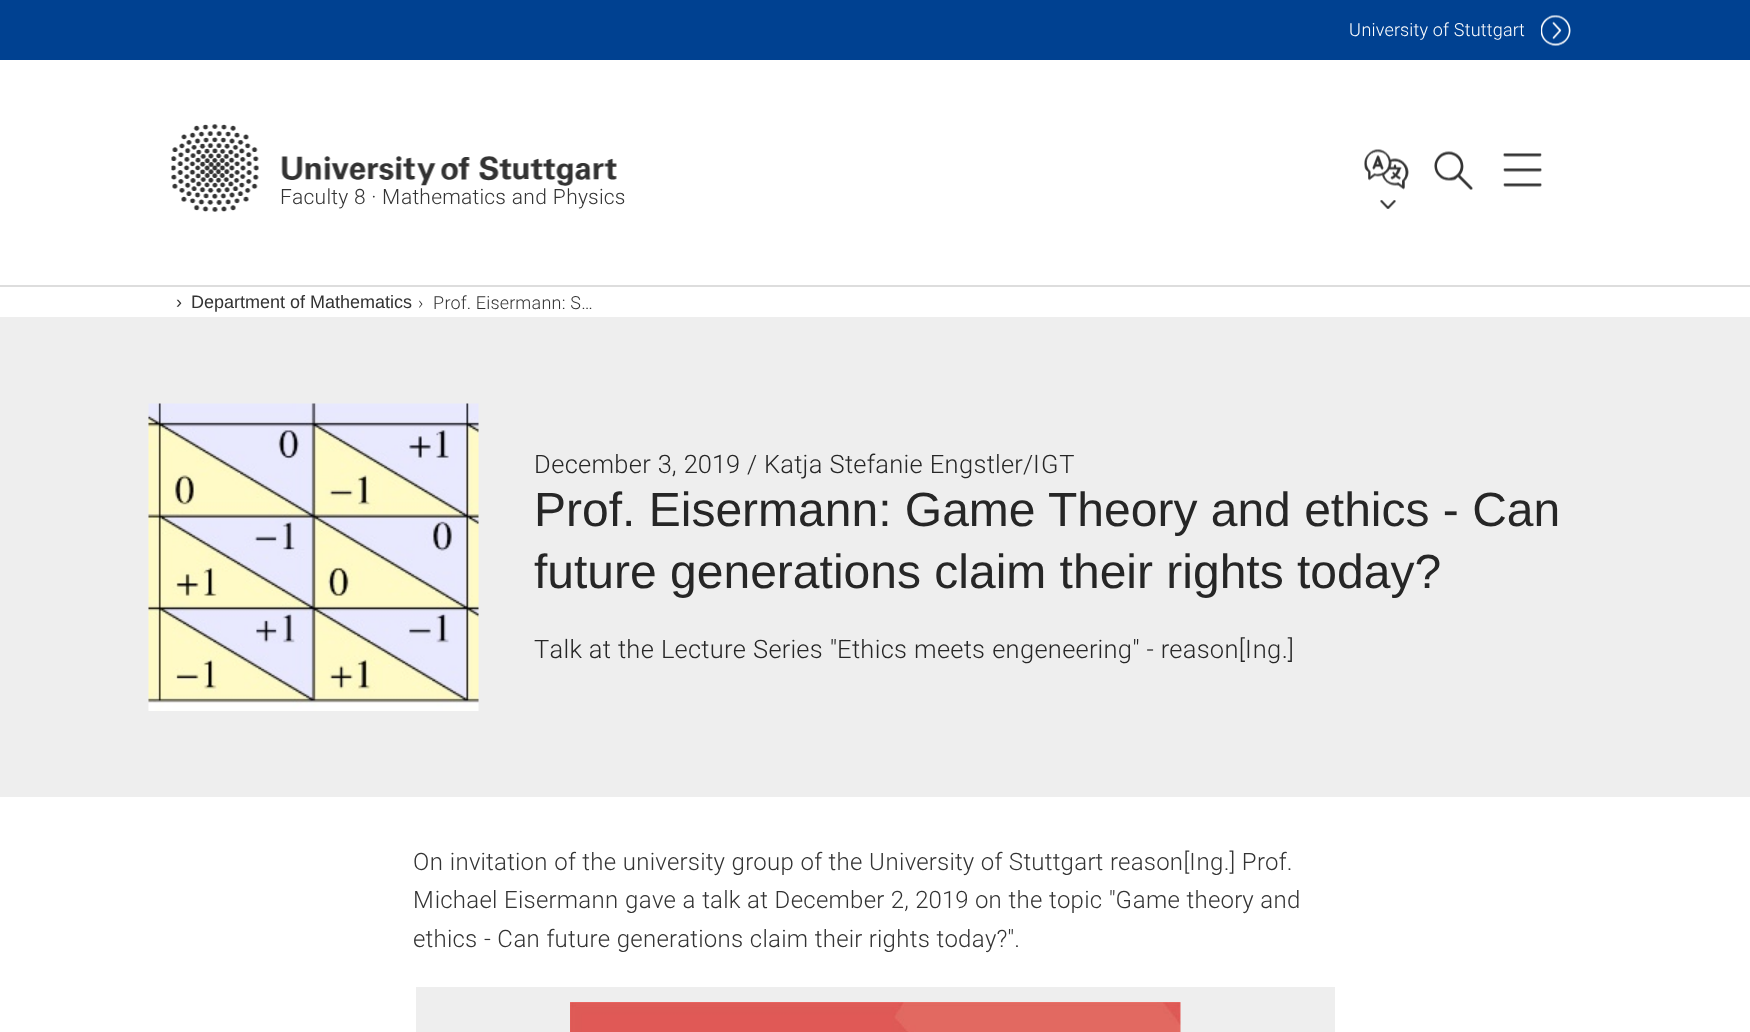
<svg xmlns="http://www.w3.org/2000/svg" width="1750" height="1032">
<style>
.a{font:300 18px Roboto;fill:#fff}
.b{font:300 21px Roboto;fill:#333}
.c{font:18px Liberation Sans;fill:#333}
.d{font:300 18px Roboto;fill:#333}
.e{font:300 25.5px Roboto;fill:#262626}
.f{font:48px Liberation Sans;fill:#262626}
.g{font:300 24px Roboto;fill:#333}
</style>
<rect width="100%" height="100%" fill="#fff"/>
<path fill="#004191" d="M0 0h1750v60H0z"/>
<image href="1.png" x="1541" y="15" width="30" height="31"/>
<image href="2.png" x="1364" y="149" width="45" height="41"/>
<image href="3.png" x="1380" y="200" width="16" height="9"/>
<image href="4.png" x="1434" y="151" width="39" height="39"/>
<image href="5.png" x="1503" y="153" width="39" height="34"/>
<image href="6.png" x="171" y="124" width="446" height="88"/>
<path fill="#ddd" d="M0 285h1750v2H0z"/>
<path fill="#eee" d="M0 317h1750v480H0z"/>
<image href="7.png" x="148" y="403" width="331" height="308"/>
<path fill="#eee" d="M416 987h919v45H416z"/>
<image href="8.png" x="570" y="1002" width="611" height="30"/>
<text class="a" x="1349" y="36">University of Stuttgart</text>
<text class="b" x="280" y="204">Faculty 8 · Mathematics and Physics</text>
<text class="c" x="176" y="308">›</text>
<text class="c" x="191" y="308">Department of Mathematics</text>
<text class="d" x="418" y="309">›</text>
<text class="d" x="433" y="309">Prof. Eisermann: S…</text>
<text class="e" x="534" y="473">December 3, 2019 / Katja Stefanie Engstler/IGT</text>
<text class="f" x="534" y="526">Prof. Eisermann: Game Theory and ethics - Can</text>
<text class="f" x="534" y="588">future generations claim their rights today?</text>
<text class="e" x="534" y="658">Talk at the Lecture Series "Ethics meets engeneering" - reason[Ing.]</text>
<text class="g" x="413" y="870">On invitation of the university group of the University of Stuttgart reason[Ing.] Prof.</text>
<text class="g" x="413" y="908">Michael Eisermann gave a talk at December 2, 2019 on the topic "Game theory and</text>
<text class="g" x="413" y="947">ethics - Can future generations claim their rights today?".</text>
</svg>
